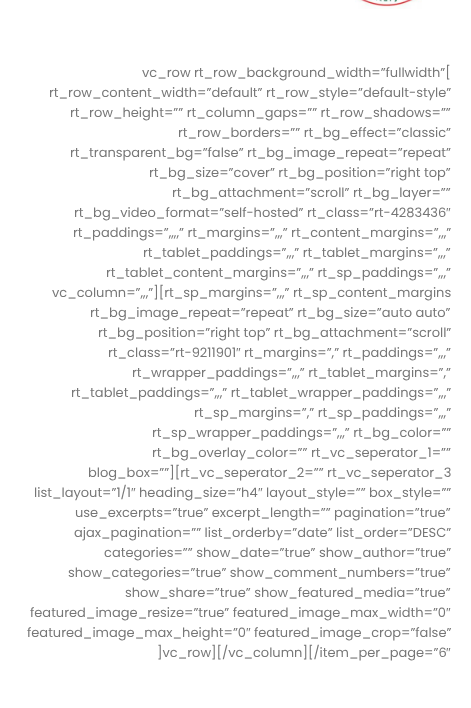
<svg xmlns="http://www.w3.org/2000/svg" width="471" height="708">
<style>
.a{font:13px Poppins;fill:#777}
.b{font:13px Liberation Sans;fill:#777}
</style>
<rect width="100%" height="100%" fill="#fff"/>
<image href="1.png" x="355" y="0" width="67" height="9"/>
<text class="a" x="142" y="77">vc_row rt_row_background_width=”fullwidth”[</text>
<text class="a" x="49" y="97">rt_row_content_width=”default” rt_row_style=”default-style”</text>
<text class="a" x="70" y="117">rt_row_height=”” rt_column_gaps=”” rt_row_shadows=””</text>
<text class="a" x="178" y="137">rt_row_borders=”” rt_bg_effect=”classic”</text>
<text class="a" x="70" y="157">rt_transparent_bg=”false” rt_bg_image_repeat=”repeat”</text>
<text class="a" x="149" y="177">rt_bg_size=”cover” rt_bg_position=”right top”</text>
<text class="a" x="172" y="197">rt_bg_attachment=”scroll” rt_bg_layer=””</text>
<text class="a" x="74" y="217">rt_bg_video_format=”self-hosted” rt_class=”rt-4283436</text>
<text class="b" x="446" y="217">″</text>
<text class="a" x="73" y="237">rt_paddings=”,,,,” rt_margins=”,,,” rt_content_margins=”,,,”</text>
<text class="a" x="143" y="257">rt_tablet_paddings=”,,,” rt_tablet_margins=”,,,”</text>
<text class="a" x="106" y="277">rt_tablet_content_margins=”,,,” rt_sp_paddings=”,,,”</text>
<text class="a" x="52" y="297">vc_column=”,,,”][rt_sp_margins=”,,,” rt_sp_content_margins</text>
<text class="a" x="90" y="317">rt_bg_image_repeat=”repeat” rt_bg_size=”auto auto”</text>
<text class="a" x="98" y="337">rt_bg_position=”right top” rt_bg_attachment=”scroll”</text>
<text class="a" x="108" y="357">rt_class=”rt-9211901</text>
<text class="b" x="236" y="357">″</text>
<text class="a" x="244" y="357">rt_margins=”,” rt_paddings=”,,,”</text>
<text class="a" x="132" y="377">rt_wrapper_paddings=”,,,” rt_tablet_margins=”,”</text>
<text class="a" x="71" y="397">rt_tablet_paddings=”,,,” rt_tablet_wrapper_paddings=”,,,”</text>
<text class="a" x="194" y="417">rt_sp_margins=”,” rt_sp_paddings=”,,,”</text>
<text class="a" x="152" y="437">rt_sp_wrapper_paddings=”,,,” rt_bg_color=””</text>
<text class="a" x="152" y="457">rt_bg_overlay_color=”” rt_vc_seperator_1=””</text>
<text class="a" x="88" y="477">blog_box=””][rt_vc_seperator_2=”” rt_vc_seperator_3</text>
<text class="a" x="34" y="497">list_layout=”1/1</text>
<text class="b" x="131" y="497">″</text>
<text class="a" x="139" y="497">heading_size=”h4</text>
<text class="b" x="258" y="497">″</text>
<text class="a" x="266" y="497">layout_style=”” box_style=””</text>
<text class="a" x="75" y="517">use_excerpts=”true” excerpt_length=”” pagination=”true”</text>
<text class="a" x="74" y="537">ajax_pagination=”” list_orderby=”date” list_order=”DESC”</text>
<text class="a" x="104" y="557">categories=”” show_date=”true” show_author=”true”</text>
<text class="a" x="68" y="577">show_categories=”true” show_comment_numbers=”true”</text>
<text class="a" x="125" y="597">show_share=”true” show_featured_media=”true”</text>
<text class="a" x="30" y="617">featured_image_resize=”true” featured_image_max_width=”0</text>
<text class="b" x="446" y="617">″</text>
<text class="a" x="27" y="637">featured_image_max_height=”0</text>
<text class="b" x="246" y="637">″</text>
<text class="a" x="254" y="637">featured_image_crop=”false”</text>
<text class="a" x="157" y="657">]vc_row][/vc_column][/item_per_page=”6</text>
<text class="b" x="446" y="657">″</text>
</svg>
